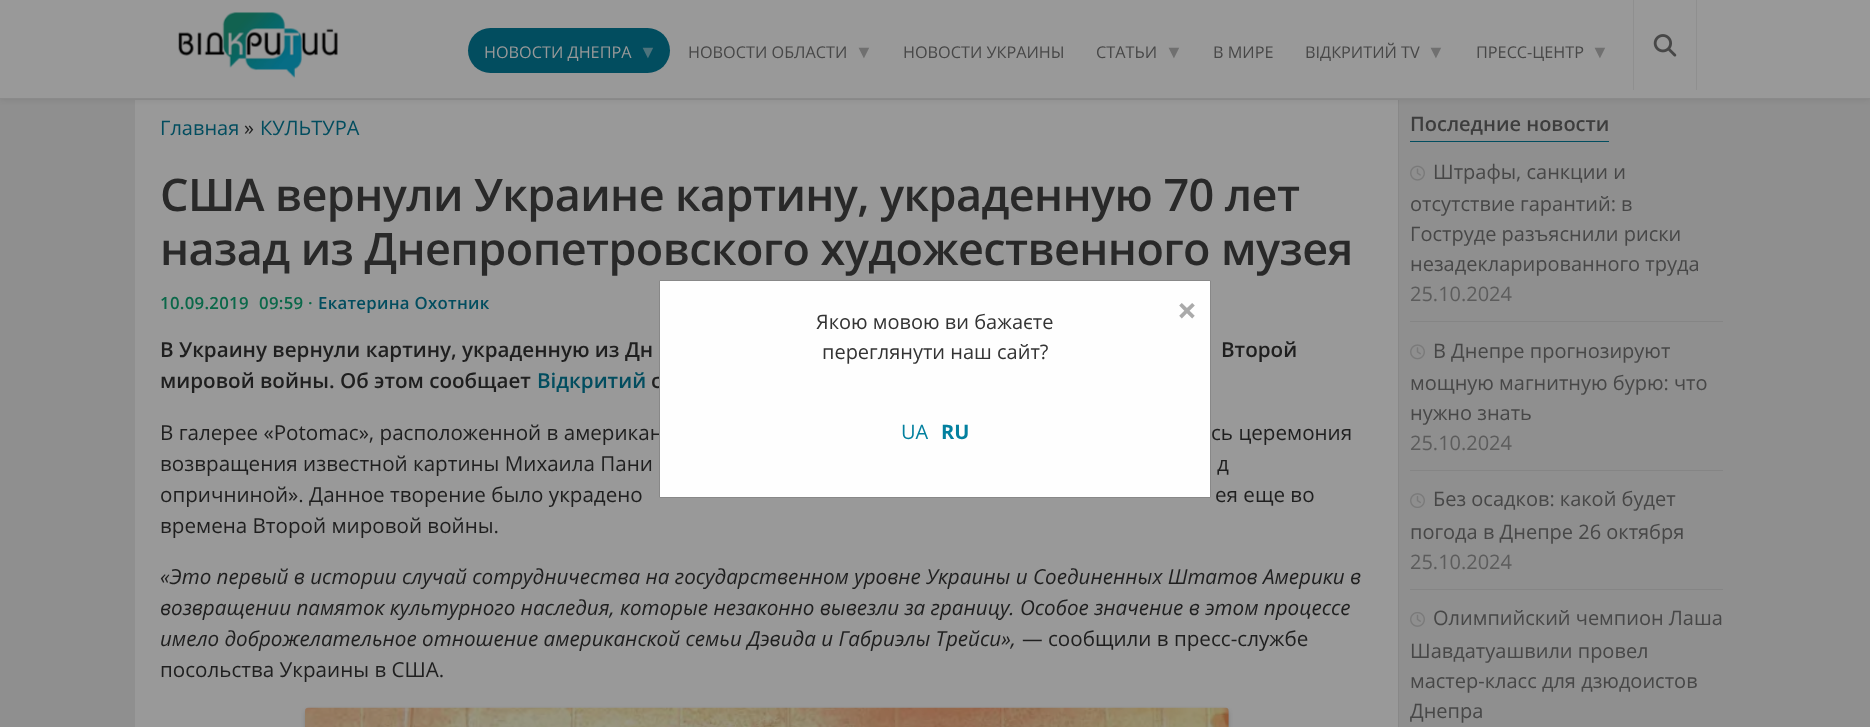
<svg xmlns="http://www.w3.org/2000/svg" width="1870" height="727">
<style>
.a{font:16.25px Open Sans;fill:#999}
.b{font:18px Liberation Serif;fill:#4d737c}
.c{font:16.25px Open Sans;fill:#474747}
.d{font:18px Liberation Serif;fill:#707070}
.e{font:20px Open Sans;fill:#024d5f}
.f{font:20px Open Sans;fill:#1f1f1f}
.g{font:600 45px Open Sans;letter-spacing:-0.6px;fill:#292929}
.h{font:600 16.75px Open Sans;letter-spacing:0.3px;fill:#0a6849}
.i{font:600 16.75px Open Sans;letter-spacing:0.3px;fill:#024d5f}
.j{font:600 20.62px Open Sans;fill:#1f1f1f}
.k{font:600 20.62px Open Sans;fill:#024d5f}
.l{font:20.62px Open Sans;fill:#1f1f1f}
.m{font:italic 20.62px Open Sans;fill:#1f1f1f}
.n{font:600 20px Open Sans;fill:#3d3d3d}
.o{font:20px Open Sans;fill:#474747}
.p{font:20px Open Sans;fill:#5c5c5c}
.q{font:bold 35px Open Sans;fill:#aaa}
.r{font:20px Open Sans;fill:#333}
.s{font:20px Open Sans;fill:#03809f}
.t{font:bold 20px Open Sans;fill:#03809f}
</style>
<rect width="100%" height="100%" fill="#8f8f8f"/>
<image href="3.png" x="1398" y="100" width="1" height="627"/>
<path fill="#999" d="M135 100h1263v627H135z"/>
<path fill="#0000001a" filter="blur(3px)" d="M0 0h1870v99H0z"/>
<path fill="#999" d="M0 0h1870v98H0z"/>
<path fill="#8a8a8a" d="M0 98h1870v1H0z"/>
<image href="1.png" x="178" y="12" width="160" height="66"/>
<rect fill="#024d5f" x="468" y="28" width="202" height="45" rx="22.5"/>
<path fill="#8f8f8f" d="M1696 0h1v90H1696z"/>
<path fill="#8f8f8f" d="M1633 0h1v90H1633z"/>
<image href="2.png" x="1653" y="34" width="24" height="23"/>
<rect fill="#00000026" filter="blur(2px)" x="305" y="710" width="924" height="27" rx="4"/>
<image href="4.png" x="305" y="707" width="924" height="20"/>
<path fill="#024d5f" d="M1410 141h199v1H1410z"/>
<path fill="#858585" d="M1410 321h313v1H1410z"/>
<image href="5.png" x="1410" y="165" width="15" height="16"/>
<path fill="#858585" d="M1410 470h313v1H1410z"/>
<image href="6.png" x="1410" y="344" width="15" height="16"/>
<path fill="#858585" d="M1410 589h313v1H1410z"/>
<image href="7.png" x="1410" y="493" width="15" height="15"/>
<image href="8.png" x="1410" y="612" width="15" height="15"/>
<text class="a" x="484" y="58">НОВОСТИ ДНЕПРА</text>
<text class="b" x="639" y="58">▼</text>
<text class="c" x="688" y="58">НОВОСТИ ОБЛАСТИ</text>
<text class="d" x="855" y="58">▼</text>
<text class="c" x="903" y="58">НОВОСТИ УКРАИНЫ</text>
<text class="c" x="1096" y="58">СТАТЬИ</text>
<text class="d" x="1165" y="58">▼</text>
<text class="c" x="1213" y="58">В МИРЕ</text>
<text class="c" x="1305" y="58">ВІДКРИТИЙ TV</text>
<text class="d" x="1427" y="58">▼</text>
<text class="c" x="1476" y="58">ПРЕСС-ЦЕНТР</text>
<text class="d" x="1591" y="58">▼</text>
<text class="e" x="160" y="135">Главная</text>
<text class="f" x="244" y="135">»</text>
<text class="e" x="260" y="135">КУЛЬТУРА</text>
<text class="g" x="160" y="211">США вернули Украине картину, украденную 70 лет</text>
<text class="g" x="160" y="265">назад из Днепропетровского художественного музея</text>
<text class="h" x="160" y="309">10.09.2019</text>
<text class="h" x="259" y="309">09:59 ·</text>
<text class="i" x="318" y="309">Екатерина Охотник</text>
<text class="j" x="160" y="357">В Украину вернули картину, украденную из Дн</text>
<text class="j" x="1221" y="357">Второй</text>
<text class="j" x="160" y="388">мировой войны. Об этом сообщает</text>
<text class="k" x="537" y="388">Відкритий</text>
<text class="j" x="651" y="388">с</text>
<text class="l" x="160" y="440">В галерее «Potomac», расположенной в американ</text>
<text class="l" x="1211" y="440">сь церемония</text>
<text class="l" x="160" y="471">возвращения известной картины Михаила Пани</text>
<text class="l" x="1217" y="471">д</text>
<text class="l" x="160" y="502">опричниной». Данное творение было украдено</text>
<text class="l" x="1215" y="502">ея еще во</text>
<text class="l" x="160" y="533">времена Второй мировой войны.</text>
<text class="m" x="160" y="584">«Это первый в истории случай сотрудничества на государственном уровне Украины и Соединенных Штатов Америки в</text>
<text class="m" x="160" y="615">возвращении памяток культурного наследия, которые незаконно вывезли за границу. Особое значение в этом процессе</text>
<text class="m" x="160" y="646">имело доброжелательное отношение американской семьи Дэвида и Габриэлы Трейси»,</text>
<text class="l" x="1022" y="646">— сообщили в пресс-службе</text>
<text class="l" x="160" y="677">посольства Украины в США.</text>
<text class="n" x="1410" y="131">Последние новости</text>
<text class="o" x="1433" y="179">Штрафы, санкции и</text>
<text class="o" x="1410" y="211">отсутствие гарантий: в</text>
<text class="o" x="1410" y="241">Гоструде разъяснили риски</text>
<text class="o" x="1410" y="271">незадекларированного труда</text>
<text class="p" x="1410" y="301">25.10.2024</text>
<text class="o" x="1433" y="358">В Днепре прогнозируют</text>
<text class="o" x="1410" y="390">мощную магнитную бурю: что</text>
<text class="o" x="1410" y="420">нужно знать</text>
<text class="p" x="1410" y="450">25.10.2024</text>
<text class="o" x="1433" y="506">Без осадков: какой будет</text>
<text class="o" x="1410" y="539">погода в Днепре 26 октября</text>
<text class="p" x="1410" y="569">25.10.2024</text>
<text class="o" x="1433" y="625">Олимпийский чемпион Лаша</text>
<text class="o" x="1410" y="658">Шавдатуашвили провел</text>
<text class="o" x="1410" y="688">мастер-класс для дзюдоистов</text>
<text class="o" x="1410" y="718">Днепра</text>
<path fill="#fefefe" stroke="#888" d="M659.5 280.5h551v217H659.5z"/>
<text class="q" x="1177" y="323">×</text>
<text class="r" x="816" y="329">Якою мовою ви бажаєте</text>
<text class="r" x="822" y="359">переглянути наш сайт?</text>
<text class="s" x="901" y="439">UA</text>
<text class="t" x="941" y="439">RU</text>
</svg>
